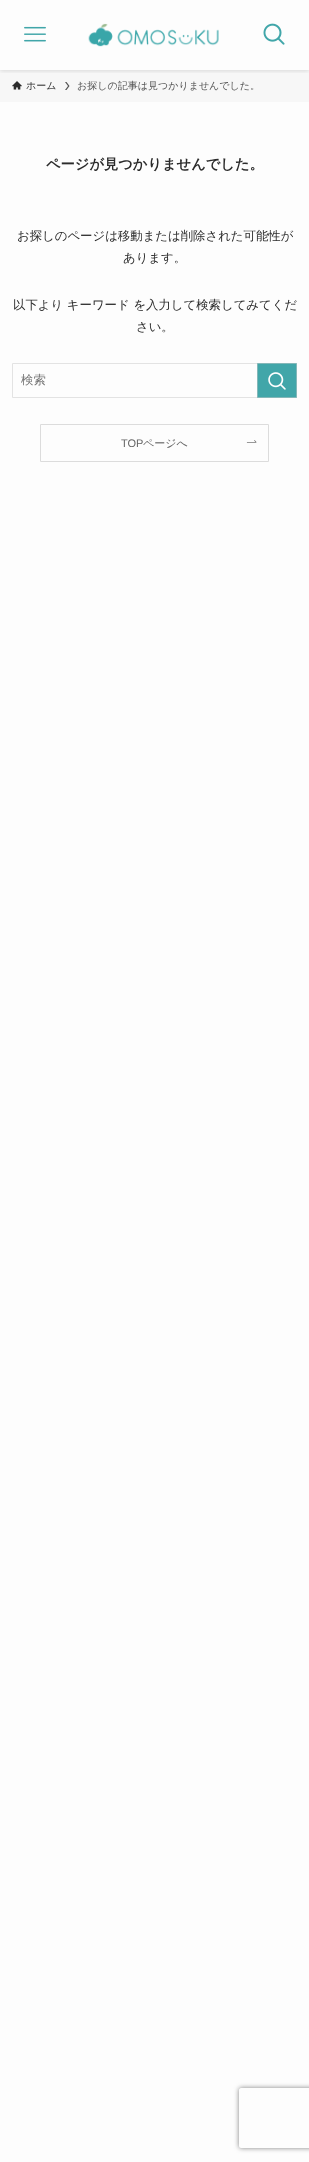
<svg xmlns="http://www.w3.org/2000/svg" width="309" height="2162">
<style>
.a{font:500 10px WenQuanYi Zen Hei;fill:#2b2b2b}
.b{font:500 10px WenQuanYi Zen Hei;fill:#545454}
.c{font:bold 14.25px WenQuanYi Zen Hei;fill:#2b2b2b}
.d{font:500 12.4px WenQuanYi Zen Hei;fill:#2b2b2b}
.e{font:500 12.4px WenQuanYi Zen Hei;fill:#757575}
.f{font:11px Liberation Sans;fill:#666}
.g{font:500 11px WenQuanYi Zen Hei;fill:#666}
</style>
<defs>
<clipPath id="clip1"><path d="M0 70h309v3H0z"/></clipPath>
<clipPath id="clip2"><path d="M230 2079h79v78h-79zm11 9h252c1 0 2 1 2 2v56c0 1-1 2-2 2h-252c-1 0-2-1-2-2v-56c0-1 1-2 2-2z" clip-rule="evenodd"/></clipPath>
</defs>
<rect width="100%" height="100%" fill="#fdfdfd"/>
<path fill="#f7f7f7" d="M0 70h309v32H0z"/>
<g clip-path="url(#clip1)">
<path fill="#0000001f" filter="blur(2px)" d="M0 1h309v70H0z"/>
</g>
<image href="1.png" x="24" y="26" width="22" height="16"/>
<image href="2.png" x="88" y="23" width="131" height="24"/>
<image href="3.png" x="263" y="23" width="22" height="22"/>
<image href="4.png" x="12" y="81" width="10" height="9"/>
<path fill="#545454" d="M66.5 82h-1.5l3 4l-3 4h1.5l3-4z"/>
<path fill="none" stroke="#e3e3e3" d="M12.5 363.5h284v34H12.5z"/>
<path fill="#41a6a9" stroke="#84b7b8" d="M257.5 363.5h39v34H257.5z"/>
<image href="5.png" x="268" y="372" width="18" height="18"/>
<path fill="none" stroke="#dcdcdc" d="M40.5 424.5h228v37H40.5z"/>
<image href="6.png" x="246" y="440" width="11" height="3"/>
<g clip-path="url(#clip2)">
<rect fill="#808080" filter="blur(2.5px)" x="239" y="2088" width="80" height="60" rx="2"/>
</g>
<text class="a" x="26" y="89">ホーム</text>
<text class="b" x="77" y="89">お探しの記事は見つかりませんでした。</text>
<text class="c" x="46" y="169">ページが見つかりませんでした。</text>
<text class="d" x="17" y="240">お探しのページは移動または削除された可能性が</text>
<text class="d" x="123" y="262">あります。</text>
<text class="d" x="13" y="309">以下より キーワード を入力して検索してみてくだ</text>
<text class="d" x="136" y="331">さい。</text>
<text class="e" x="21" y="384">検索</text>
<text class="f" x="121" y="447">TOP</text>
<text class="g" x="143" y="447">ページへ</text>
</svg>
